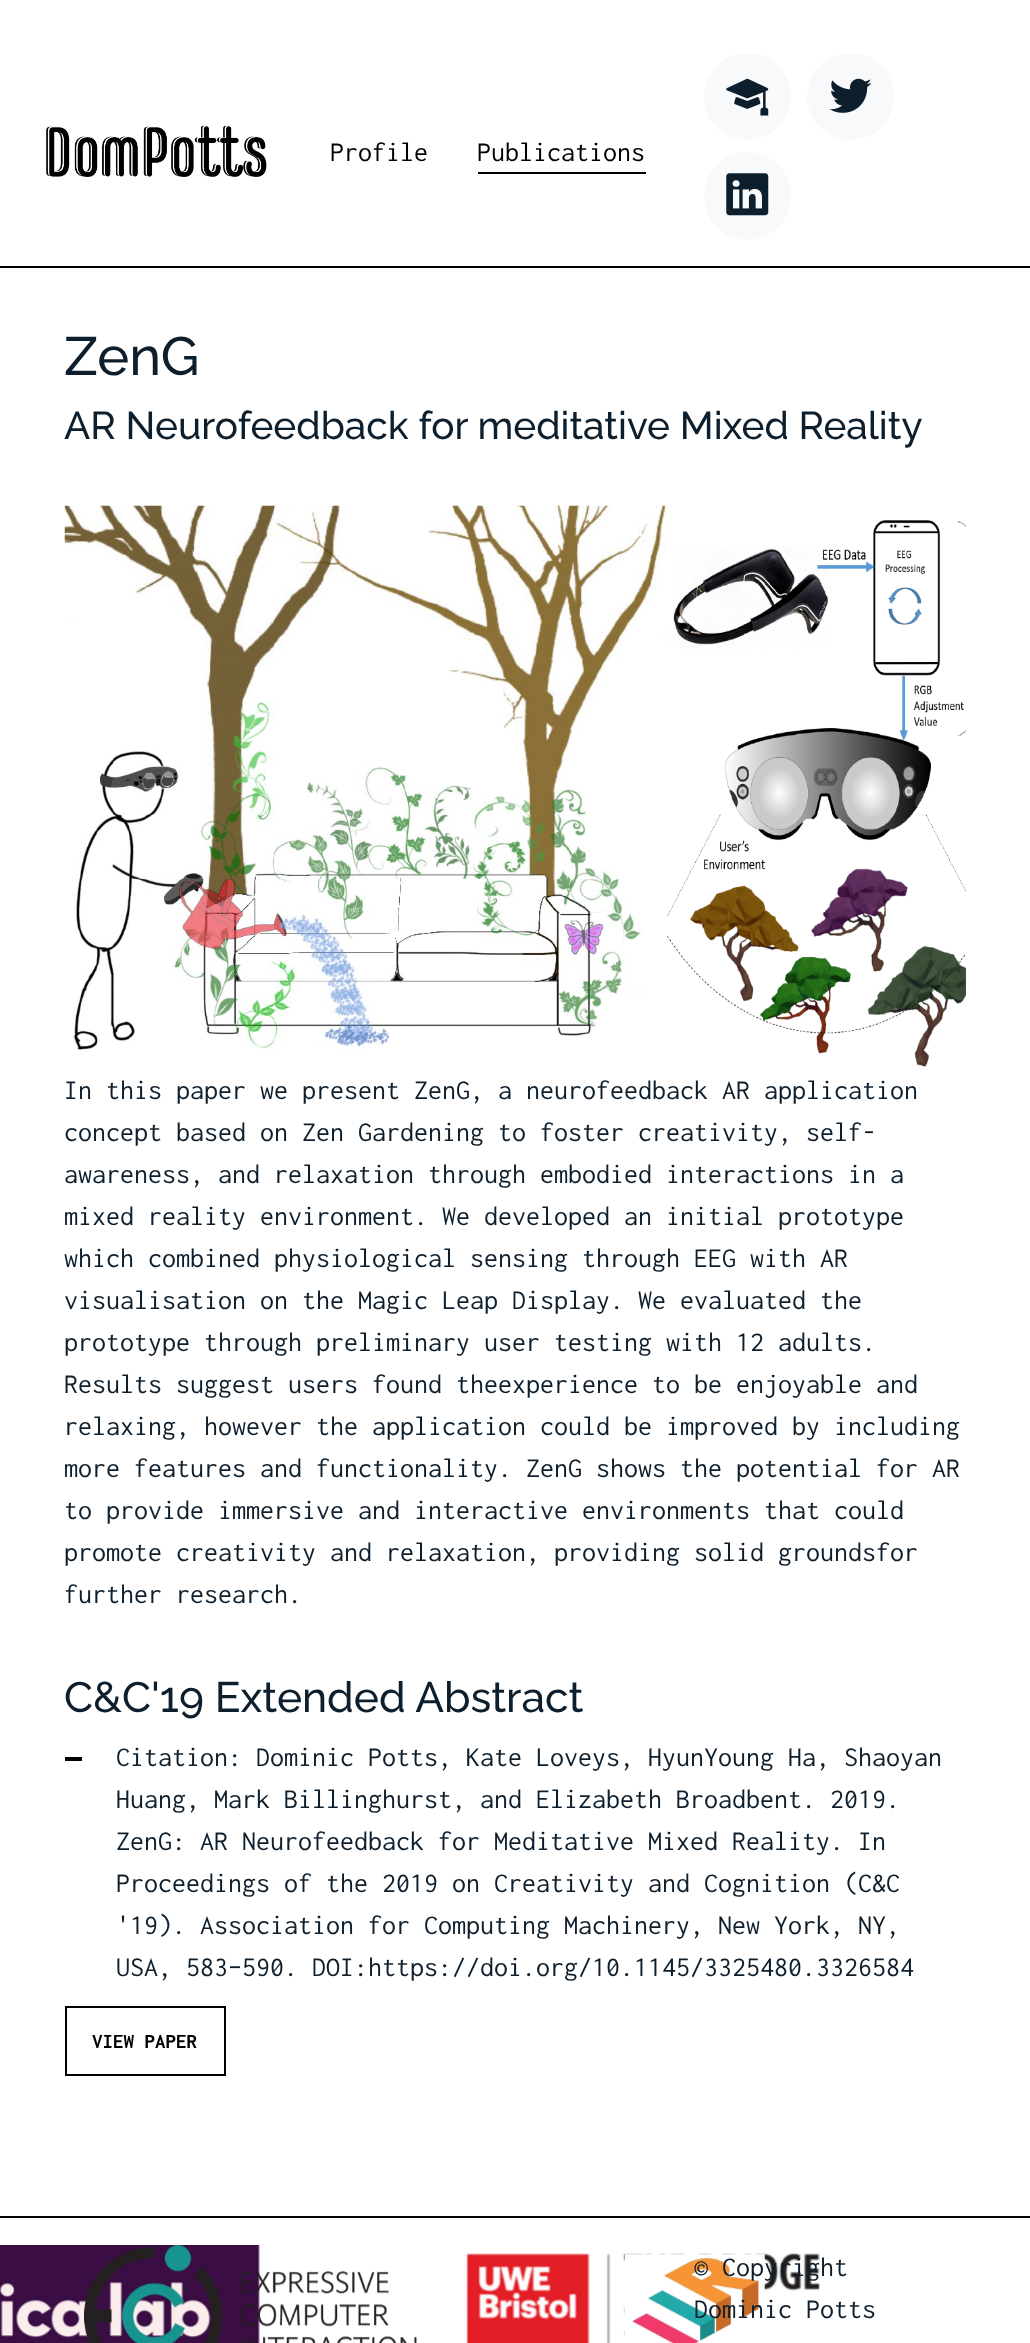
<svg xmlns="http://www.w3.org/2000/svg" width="1030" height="2343">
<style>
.a{font:28px Inconsolata;fill:#000}
.b{font:500 54px Raleway;fill:#0d1e2d}
.c{font:500 38.75px Raleway;fill:#0d1e2d}
.d{font:28px Inconsolata;fill:#0d1e2d}
.e{font:500 42.5px Raleway;fill:#0d1e2d}
.f{font:bold 21px Inconsolata;fill:#000}
</style>
<rect width="100%" height="100%" fill="#fff"/>
<image href="1.png" x="46" y="125" width="221" height="52"/>
<path fill="#000" d="M478 172h168v2H478z"/>
<circle fill="#f8f9fa" cx="747.5" cy="96.5" r="43.5"/>
<image href="2.png" x="726" y="78" width="43" height="38"/>
<circle fill="#f8f9fa" cx="850.5" cy="96.5" r="43.5"/>
<image href="3.png" x="829" y="78" width="43" height="35"/>
<rect fill="#f8f9fa" x="704" y="152" width="87" height="88" rx="43.5"/>
<image href="4.png" x="726" y="173" width="43" height="43"/>
<path fill="#000" d="M0 266h1030v2H0z"/>
<image href="5.png" x="64" y="505" width="902" height="562"/>
<path fill="#000" d="M65 1757h17v4H65z"/>
<path fill="none" stroke="#000" stroke-width="2" d="M66 2007h159v68H66z"/>
<path fill="#000" d="M0 2216h1030v2H0z"/>
<image href="6.png" x="0" y="2245" width="260" height="98"/>
<image href="7.png" x="84" y="2245" width="333" height="98"/>
<image href="8.png" x="466" y="2253" width="354" height="90"/>
<image href="9.png" x="624" y="2253" width="141" height="90"/>
<text class="a" x="330" y="161">Profile</text>
<text class="a" x="477" y="161">Publications</text>
<text class="b" x="64" y="375">ZenG</text>
<text class="c" x="64" y="439">AR Neurofeedback for meditative Mixed Reality</text>
<text class="d" x="64" y="1099">In this paper we present ZenG, a neurofeedback AR application</text>
<text class="d" x="64" y="1141">concept based on Zen Gardening to foster creativity, self-</text>
<text class="d" x="64" y="1183">awareness, and relaxation through embodied interactions in a</text>
<text class="d" x="64" y="1225">mixed reality environment. We developed an initial prototype</text>
<text class="d" x="64" y="1267">which combined physiological sensing through EEG with AR</text>
<text class="d" x="64" y="1309">visualisation on the Magic Leap Display. We evaluated the</text>
<text class="d" x="64" y="1351">prototype through preliminary user testing with 12 adults.</text>
<text class="d" x="64" y="1393">Results suggest users found theexperience to be enjoyable and</text>
<text class="d" x="64" y="1435">relaxing, however the application could be improved by including</text>
<text class="d" x="64" y="1477">more features and functionality. ZenG shows the potential for AR</text>
<text class="d" x="64" y="1519">to provide immersive and interactive environments that could</text>
<text class="d" x="64" y="1561">promote creativity and relaxation, providing solid groundsfor</text>
<text class="d" x="64" y="1603">further research.</text>
<text class="e" x="64" y="1712">C&amp;C'19 Extended Abstract</text>
<text class="d" x="116" y="1766">Citation: Dominic Potts, Kate Loveys, HyunYoung Ha, Shaoyan</text>
<text class="d" x="116" y="1808">Huang, Mark Billinghurst, and Elizabeth Broadbent. 2019.</text>
<text class="d" x="116" y="1850">ZenG: AR Neurofeedback for Meditative Mixed Reality. In</text>
<text class="d" x="116" y="1892">Proceedings of the 2019 on Creativity and Cognition (C&amp;C</text>
<text class="d" x="116" y="1934">'19). Association for Computing Machinery, New York, NY,</text>
<text class="d" x="116" y="1976">USA, 583–590. DOI:https://doi.org/10.1145/3325480.3326584</text>
<text class="f" x="92" y="2048">VIEW PAPER</text>
<text class="d" x="694" y="2276">© Copyright</text>
<text class="d" x="694" y="2318">Dominic Potts</text>
</svg>
